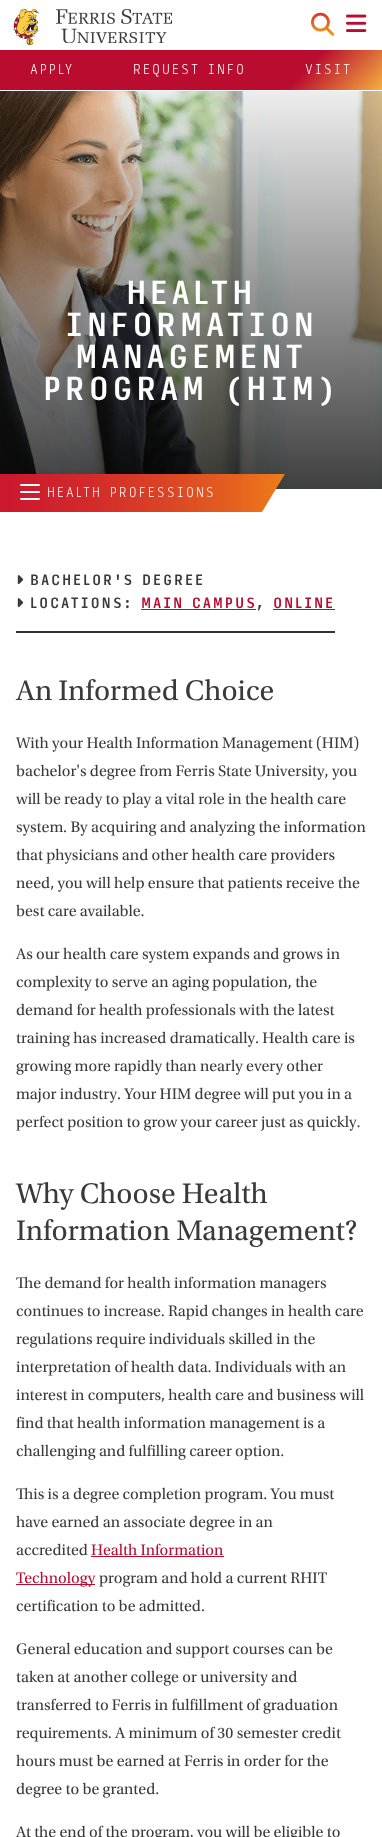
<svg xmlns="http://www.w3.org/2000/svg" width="382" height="1837">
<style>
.a{font:200 13.6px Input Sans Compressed;letter-spacing:2px;fill:#fff}
.b{font:500 32px Input Sans Compressed;letter-spacing:3.25px;fill:#fff}
.c{font:500 14.4px Input Sans Compressed;letter-spacing:1.75px;fill:#3a3a3a}
.d{font:500 14.4px Input Sans Compressed;letter-spacing:1.75px;fill:#ba0c2f}
.e{font:29.75px Utopia;fill:#3a3a3a}
.f{font:16px Utopia;fill:#3a3a3a}
.g{font:16px Utopia;fill:#ba0c2f}
</style>
<defs>
<linearGradient id="g1" gradientUnits="userSpaceOnUse" x1="69" y1="-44" x2="313" y2="184"><stop offset="0.75" stop-color="#ba0c2f"/><stop offset="1" stop-color="#ffd043"/></linearGradient>
</defs>
<rect width="100%" height="100%" fill="#fff"/>
<image href="1.png" x="13" y="9" width="26" height="36"/>
<image href="2.png" x="56" y="9" width="116" height="34"/>
<image href="3.png" x="311" y="12" width="24" height="24"/>
<image href="4.png" x="346" y="14" width="21" height="18"/>
<path fill="url(#g1)" d="M0 50h382v40H0z"/>
<image href="5.png" x="0" y="91" width="382" height="398"/>
<image href="6.png" x="0" y="474" width="285" height="38"/>
<rect fill="#fff" x="20" y="484" width="20" height="2" rx="1"/>
<rect fill="#fff" x="20" y="491" width="20" height="2" rx="1"/>
<rect fill="#fff" x="20" y="498" width="20" height="2" rx="1"/>
<path fill="#333" d="M16 631h319v2H16z"/>
<image href="7.png" x="17" y="575" width="7" height="10"/>
<image href="7.png" x="17" y="598" width="7" height="10"/>
<path fill="#ba0c2f" d="M141 609h115v1H141z"/>
<path fill="#ba0c2f" d="M273 609h62v1H273z"/>
<path fill="#ba0c2f" d="M91 1556h133v1H91z"/>
<path fill="#ba0c2f" d="M16 1584h79v1H16z"/>
<text class="a" x="30" y="74">APPLY</text>
<text class="a" x="133" y="74">REQUEST INFO</text>
<text class="a" x="305" y="74">VISIT</text>
<text class="b" x="126" y="304">HEALTH</text>
<text class="b" x="65" y="336">INFORMATION</text>
<text class="b" x="75" y="368">MANAGEMENT</text>
<text class="b" x="43" y="400">PROGRAM (HIM)</text>
<text class="a" x="47" y="497">HEALTH PROFESSIONS</text>
<text class="c" x="30" y="585">BACHELOR'S DEGREE</text>
<text class="c" x="30" y="608">LOCATIONS:</text>
<text class="d" x="141" y="608">MAIN CAMPUS</text>
<text class="c" x="256" y="608">,</text>
<text class="d" x="273" y="608">ONLINE</text>
<text class="e" x="16" y="700">An Informed Choice</text>
<text class="f" x="16" y="748">With your Health Information Management (HIM)</text>
<text class="f" x="16" y="776">bachelor's degree from Ferris State University, you</text>
<text class="f" x="16" y="804">will be ready to play a vital role in the health care</text>
<text class="f" x="16" y="832">system. By acquiring and analyzing the information</text>
<text class="f" x="16" y="860">that physicians and other health care providers</text>
<text class="f" x="16" y="888">need, you will help ensure that patients receive the</text>
<text class="f" x="16" y="916">best care available.</text>
<text class="f" x="16" y="959">As our health care system expands and grows in</text>
<text class="f" x="16" y="987">complexity to serve an aging population, the</text>
<text class="f" x="16" y="1015">demand for health professionals with the latest</text>
<text class="f" x="16" y="1043">training has increased dramatically. Health care is</text>
<text class="f" x="16" y="1071">growing more rapidly than nearly every other</text>
<text class="f" x="16" y="1099">major industry. Your HIM degree will put you in a</text>
<text class="f" x="16" y="1127">perfect position to grow your career just as quickly.</text>
<text class="e" x="16" y="1203">Why Choose Health</text>
<text class="e" x="16" y="1240">Information Management?</text>
<text class="f" x="16" y="1288">The demand for health information managers</text>
<text class="f" x="16" y="1316">continues to increase. Rapid changes in health care</text>
<text class="f" x="16" y="1344">regulations require individuals skilled in the</text>
<text class="f" x="16" y="1372">interpretation of health data. Individuals with an</text>
<text class="f" x="16" y="1400">interest in computers, health care and business will</text>
<text class="f" x="16" y="1428">find that health information management is a</text>
<text class="f" x="16" y="1456">challenging and fulfilling career option.</text>
<text class="f" x="16" y="1499">This is a degree completion program. You must</text>
<text class="f" x="16" y="1527">have earned an associate degree in an</text>
<text class="f" x="16" y="1555">accredited</text>
<text class="g" x="91" y="1555">Health Information</text>
<text class="g" x="16" y="1583">Technology</text>
<text class="f" x="99" y="1583">program and hold a current RHIT</text>
<text class="f" x="16" y="1611">certification to be admitted.</text>
<text class="f" x="16" y="1654">General education and support courses can be</text>
<text class="f" x="16" y="1682">taken at another college or university and</text>
<text class="f" x="16" y="1710">transferred to Ferris in fulfillment of graduation</text>
<text class="f" x="16" y="1738">requirements. A minimum of 30 semester credit</text>
<text class="f" x="16" y="1766">hours must be earned at Ferris in order for the</text>
<text class="f" x="16" y="1794">degree to be granted.</text>
<text class="f" x="16" y="1837">At the end of the program, you will be eligible to</text>
</svg>
